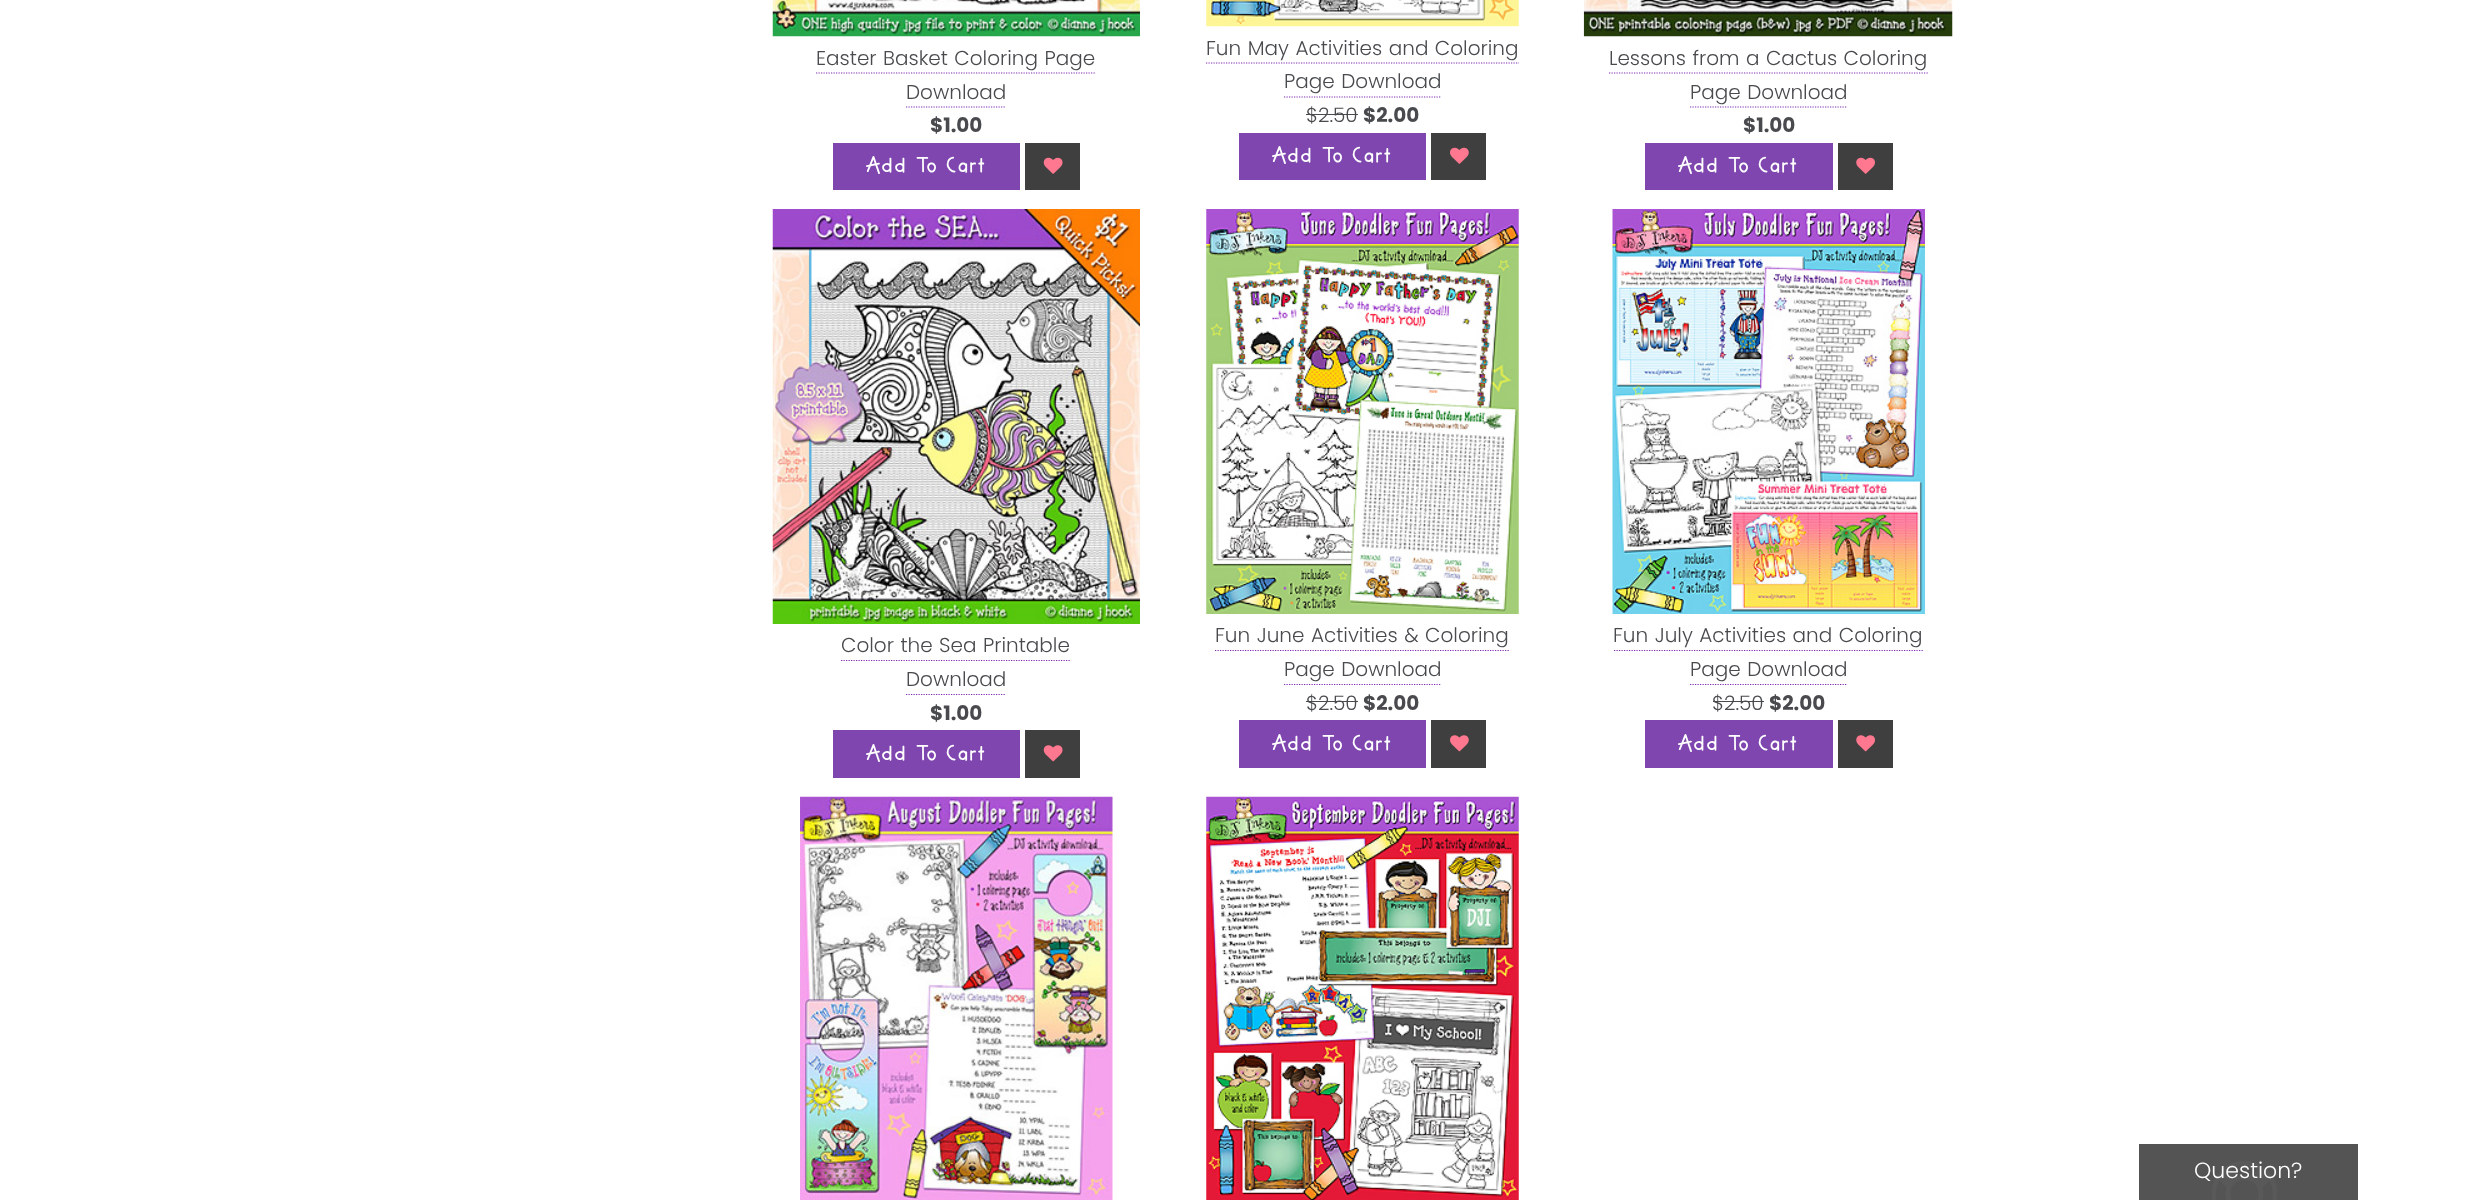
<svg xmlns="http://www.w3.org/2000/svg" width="2481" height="1200">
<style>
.a{font:300 20px Poppins;fill:#484a4d}
.b{font:bold 20px Poppins;fill:#484a4d}
.c{font:17.5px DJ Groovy;letter-spacing:1.25px;fill:#fff}
.d{font:300 22px Poppins;fill:#fff}
</style>
<rect width="100%" height="100%" fill="#fff"/>
<image href="1.png" x="772" y="0" width="368" height="37"/>
<path fill="none" stroke="#802db5" stroke-width="1.2" stroke-dasharray="1.25 1.25" d="M816 73h280"/>
<path fill="none" stroke="#802db5" stroke-width="1.2" stroke-dasharray="1.25 1.25" d="M906 107h100"/>
<path fill="#7f46af" d="M833 143h187v47H833z"/>
<path fill="#3f3f3f" d="M1025 143h55v47H1025z"/>
<image href="2.png" x="1043" y="157" width="20" height="17"/>
<image href="3.png" x="1206" y="0" width="313" height="27"/>
<path fill="none" stroke="#802db5" stroke-width="1.2" stroke-dasharray="1.25 1.25" d="M1206 63h313"/>
<path fill="none" stroke="#802db5" stroke-width="1.2" stroke-dasharray="1.25 1.25" d="M1284 97h157"/>
<path fill="#484a4d" d="M1306 114h52v1H1306z"/>
<path fill="#7f46af" d="M1239 133h187v47H1239z"/>
<path fill="#3f3f3f" d="M1431 133h55v47H1431z"/>
<image href="4.png" x="1450" y="147" width="19" height="17"/>
<image href="5.png" x="1583" y="0" width="370" height="37"/>
<path fill="none" stroke="#802db5" stroke-width="1.2" stroke-dasharray="1.25 1.25" d="M1609 73h320"/>
<path fill="none" stroke="#802db5" stroke-width="1.2" stroke-dasharray="1.25 1.25" d="M1690 107h157.5"/>
<path fill="#7f46af" d="M1645 143h188v47H1645z"/>
<path fill="#3f3f3f" d="M1838 143h55v47H1838z"/>
<image href="6.png" x="1856" y="157" width="19" height="17"/>
<image href="7.png" x="772" y="209" width="368" height="415"/>
<path fill="none" stroke="#802db5" stroke-width="1.2" stroke-dasharray="1.25 1.25" d="M841 660.5h230"/>
<path fill="none" stroke="#802db5" stroke-width="1.2" stroke-dasharray="1.25 1.25" d="M906 694.5h100"/>
<path fill="#7f46af" d="M833 730h187v48H833z"/>
<path fill="#3f3f3f" d="M1025 730h55v48H1025z"/>
<image href="8.png" x="1043" y="745" width="20" height="17"/>
<image href="9.png" x="1206" y="209" width="313" height="405"/>
<path fill="none" stroke="#802db5" stroke-width="1.2" stroke-dasharray="1.25 1.25" d="M1215 650.5h295"/>
<path fill="none" stroke="#802db5" stroke-width="1.2" stroke-dasharray="1.25 1.25" d="M1284 684.5h157"/>
<path fill="#484a4d" d="M1306 701h52v1H1306z"/>
<path fill="#7f46af" d="M1239 720h187v48H1239z"/>
<path fill="#3f3f3f" d="M1431 720h55v48H1431z"/>
<image href="10.png" x="1450" y="735" width="19" height="17"/>
<image href="11.png" x="1612" y="209" width="313" height="405"/>
<path fill="none" stroke="#802db5" stroke-width="1.2" stroke-dasharray="1.25 1.25" d="M1614 650.5h310"/>
<path fill="none" stroke="#802db5" stroke-width="1.2" stroke-dasharray="1.25 1.25" d="M1690 684.5h157.5"/>
<path fill="#484a4d" d="M1713 701h51v1H1713z"/>
<path fill="#7f46af" d="M1645 720h188v48H1645z"/>
<path fill="#3f3f3f" d="M1838 720h55v48H1838z"/>
<image href="12.png" x="1856" y="735" width="19" height="17"/>
<image href="13.png" x="800" y="796" width="313" height="404"/>
<image href="14.png" x="1206" y="796" width="313" height="404"/>
<path fill="#545454" d="M2139 1144h219v56H2139z"/>
<image href="15.png" x="2212" y="1161" width="65" height="39"/>
<text class="a" x="816" y="65" word-spacing="1">Easter Basket Coloring Page</text>
<text class="a" x="906" y="99">Download</text>
<text class="b" x="930" y="132">$1.00</text>
<text class="c" x="866" y="172">Add To Cart</text>
<text class="a" x="1206" y="55" word-spacing="1">Fun May Activities and Coloring</text>
<text class="a" x="1284" y="88" word-spacing="1">Page Download</text>
<text class="a" x="1306" y="122">$2.50</text>
<text class="b" x="1363" y="122">$2.00</text>
<text class="c" x="1272" y="162">Add To Cart</text>
<text class="a" x="1609" y="65" word-spacing="1">Lessons from a Cactus Coloring</text>
<text class="a" x="1690" y="99" word-spacing="1">Page Download</text>
<text class="b" x="1743" y="132">$1.00</text>
<text class="c" x="1678" y="172">Add To Cart</text>
<text class="a" x="841" y="652" word-spacing="1">Color the Sea Printable</text>
<text class="a" x="906" y="686">Download</text>
<text class="b" x="930" y="720">$1.00</text>
<text class="c" x="866" y="760">Add To Cart</text>
<text class="a" x="1215" y="642" word-spacing="1">Fun June Activities &amp; Coloring</text>
<text class="a" x="1284" y="676" word-spacing="1">Page Download</text>
<text class="a" x="1306" y="710">$2.50</text>
<text class="b" x="1363" y="710">$2.00</text>
<text class="c" x="1272" y="750">Add To Cart</text>
<text class="a" x="1613" y="642" word-spacing="1">Fun July Activities and Coloring</text>
<text class="a" x="1690" y="676" word-spacing="1">Page Download</text>
<text class="a" x="1712" y="710">$2.50</text>
<text class="b" x="1769" y="710">$2.00</text>
<text class="c" x="1678" y="750">Add To Cart</text>
<text class="d" x="2194" y="1178">Question?</text>
</svg>
